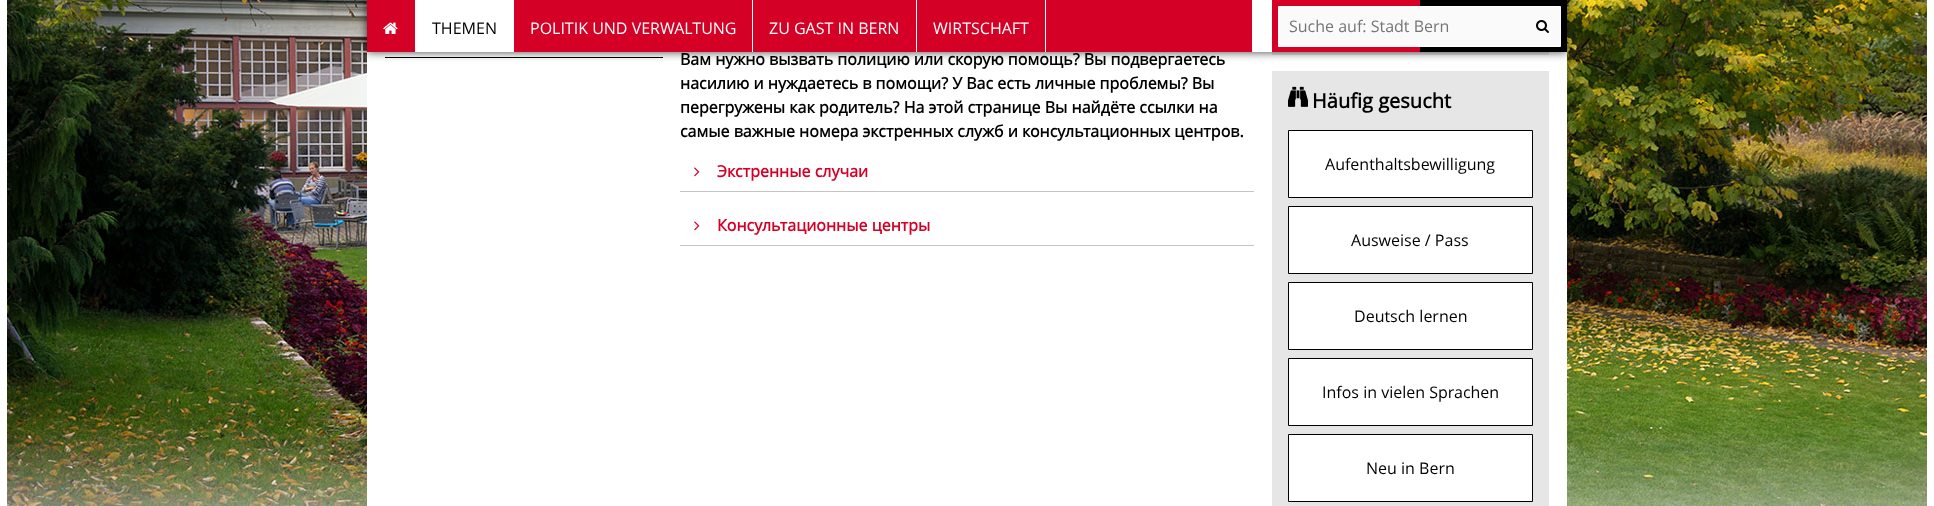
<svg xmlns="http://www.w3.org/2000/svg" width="1934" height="506">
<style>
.a{font:16px Open Sans;fill:#000}
.b{font:16px Open Sans;fill:#fff}
.c{font:16px Open Sans;fill:#757575}
.d{font:bold 16px Open Sans;fill:#000}
.e{font:bold 16px Open Sans;fill:#d50025}
.f{font:bold 20px Open Sans;fill:#000}
</style>
<defs>
<linearGradient id="g1" gradientUnits="userSpaceOnUse" x1="1567" y1="52" x2="1272" y2="52"><stop offset="0" stop-color="#000"/><stop offset="0.5" stop-color="#000"/><stop offset="0.5" stop-color="#d50025"/><stop offset="1" stop-color="#d50025"/></linearGradient>
</defs>
<rect width="100%" height="100%" fill="#fff"/>
<image href="1.png" x="7" y="0" width="1920" height="506"/>
<path fill="#fff" d="M367 52h1200v454H367z"/>
<path fill="#000" d="M385 57h278v1H385z"/>
<path fill="#e6e6e6" d="M1272 52h277v3H1272z"/>
<path fill="#000000bf" filter="blur(5px)" d="M367 0h1200v52H367z"/>
<path fill="#fff" d="M1252 0h20v52H1252z"/>
<path fill="#d50025" d="M367 0h885v52H367z"/>
<image href="2.png" x="383" y="22" width="15" height="12"/>
<path fill="#fff" d="M415 0h99v52H415z"/>
<path fill="#fff" d="M752 0h1v52H752z"/>
<path fill="#fff" d="M916 0h1v52H916z"/>
<path fill="#fff" d="M1045 0h1v52H1045z"/>
<path fill="url(#g1)" d="M1272 0h295v52H1272z"/>
<path fill="#fafafa" stroke="#fff" d="M1278.5 6.5h282v40H1278.5z"/>
<image href="3.png" x="1536" y="20" width="13" height="13"/>
<path fill="#c5c5c5" d="M680 191h574v1H680z"/>
<image href="4.png" x="694" y="167" width="6" height="10"/>
<path fill="#c5c5c5" d="M680 245h574v1H680z"/>
<image href="4.png" x="694" y="221" width="6" height="10"/>
<path fill="#e6e6e6" d="M1272 71h277v435H1272z"/>
<image href="5.png" x="1288" y="86" width="20" height="21"/>
<path fill="#fff" stroke="#000" d="M1288.5 130.5h244v67H1288.5z"/>
<path fill="#fff" stroke="#000" d="M1288.5 206.5h244v67H1288.5z"/>
<path fill="#fff" stroke="#000" d="M1288.5 282.5h244v67H1288.5z"/>
<path fill="#fff" stroke="#000" d="M1288.5 358.5h244v67H1288.5z"/>
<path fill="#fff" stroke="#000" d="M1288.5 434.5h244v67H1288.5z"/>
<text class="a" x="432" y="34">THEMEN</text>
<text class="b" x="530" y="34">POLITIK UND VERWALTUNG</text>
<text class="b" x="769" y="34">ZU GAST IN BERN</text>
<text class="b" x="933" y="34">WIRTSCHAFT</text>
<text class="c" x="1289" y="32">Suche auf: Stadt Bern</text>
<text class="d" x="680" y="65">Вам нужно вызвать полицию или скорую помощь? Вы подвергаетесь</text>
<text class="d" x="680" y="89">насилию и нуждаетесь в помощи? У Вас есть личные проблемы? Вы</text>
<text class="d" x="680" y="113">перегружены как родитель? На этой странице Вы найдёте ссылки на</text>
<text class="d" x="680" y="137">самые важные номера экстренных служб и консультационных центров.</text>
<text class="e" x="717" y="177">Экстренные случаи</text>
<text class="e" x="717" y="231">Консультационные центры</text>
<text class="f" x="1312" y="108">Häufig gesucht</text>
<text class="a" x="1325" y="170">Aufenthaltsbewilligung</text>
<text class="a" x="1351" y="246">Ausweise / Pass</text>
<text class="a" x="1354" y="322">Deutsch lernen</text>
<text class="a" x="1322" y="398">Infos in vielen Sprachen</text>
<text class="a" x="1366" y="474">Neu in Bern</text>
</svg>
